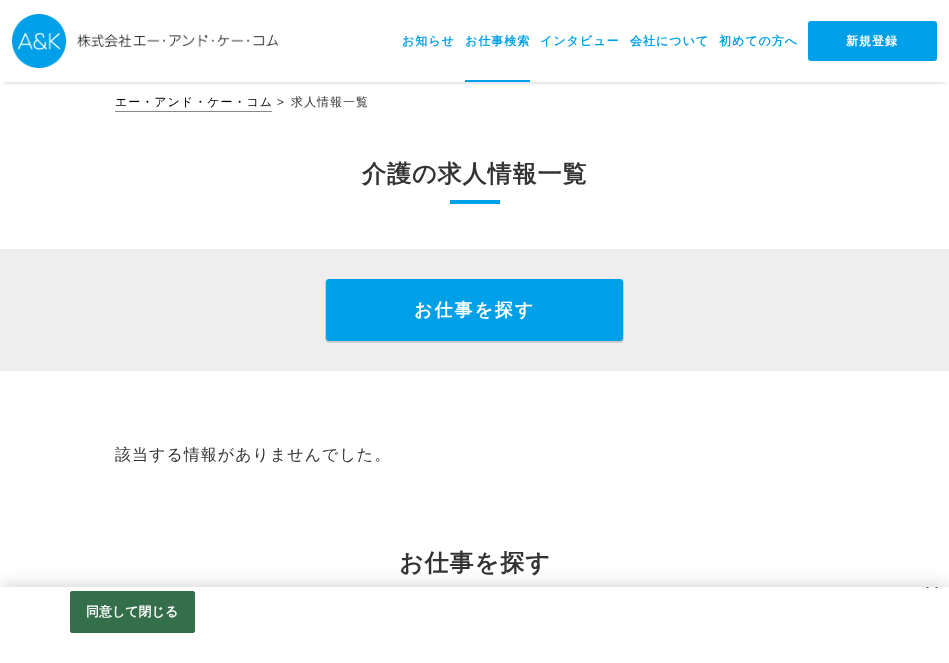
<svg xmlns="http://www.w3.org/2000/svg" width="949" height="663">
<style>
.a{font:bold 12px WenQuanYi Zen Hei;letter-spacing:1px;fill:#00a0e9}
.b{font:bold 12px WenQuanYi Zen Hei;letter-spacing:1px;fill:#fff}
.c{font:500 12px WenQuanYi Zen Hei;letter-spacing:1px;fill:#000}
.d{font:12px Liberation Sans;letter-spacing:1px;fill:#333}
.e{font:500 12px WenQuanYi Zen Hei;letter-spacing:1px;fill:#333}
.f{font:bold 24px WenQuanYi Zen Hei;letter-spacing:1px;fill:#333}
.g{font:bold 18px WenQuanYi Zen Hei;letter-spacing:2px;fill:#fff}
.h{font:500 16px WenQuanYi Zen Hei;letter-spacing:1px;fill:#333}
.i{font:bold 13px WenQuanYi Zen Hei;fill:#fff}
</style>
<defs>
<clipPath id="clip1"><path d="M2 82h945v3H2z"/></clipPath>
</defs>
<rect width="100%" height="100%" fill="#fff"/>
<g clip-path="url(#clip1)">
<path fill="#0000004d" filter="blur(3px)" d="M4 7h941v74H4z"/>
</g>
<image href="1.png" x="12" y="14" width="266" height="54"/>
<path fill="#00a0e9" d="M465 80h65v2H465z"/>
<rect fill="#00a0e9" x="808" y="21" width="129" height="40" rx="3"/>
<path fill="#888" d="M115 111h157v1H115z"/>
<path fill="#00a0e9" d="M450 200h50v4H450z"/>
<path fill="#eee" d="M0 249h949v122H0z"/>
<path fill="#ccc" d="M329 279c-2 0-4 2-4 4v56c0 2 2 4 4 4h291c2 0 4-2 4-4v-56c0-2-2-4-4-4c2 0 3 1 3 3v56c0 2-1 3-3 3h-291c-2 0-3-1-3-3v-56c0-2 1-3 3-3z"/>
<rect fill="#00a0e9" x="326" y="279" width="297" height="62" rx="3"/>
<path fill="#00000033" filter="blur(9px)" d="M0 587h949v76H0z"/>
<path fill="#fff" d="M0 587h949v76H0z"/>
<image href="2.png" x="926" y="587" width="12" height="1"/>
<rect fill="#346e4a" stroke="#346e4a" x="70.5" y="591.5" width="124" height="41" rx="1.5"/>
<text class="a" x="402" y="45">お知らせ</text>
<text class="a" x="465" y="45">お仕事検索</text>
<text class="a" x="540" y="45">インタビュー</text>
<text class="a" x="630" y="45">会社について</text>
<text class="a" x="719" y="45">初めての方へ</text>
<text class="b" x="846" y="45">新規登録</text>
<text class="c" x="115" y="106">エー・アンド・ケー・コム</text>
<text class="d" x="277" y="106">&gt;</text>
<text class="e" x="291" y="106">求人情報一覧</text>
<text class="f" x="362" y="182">介護の求人情報一覧</text>
<text class="g" x="414" y="316">お仕事を探す</text>
<text class="h" x="115" y="460">該当する情報がありませんでした。</text>
<text class="f" x="399" y="571">お仕事を探す</text>
<text class="i" x="86" y="616">同意して閉じる</text>
</svg>
